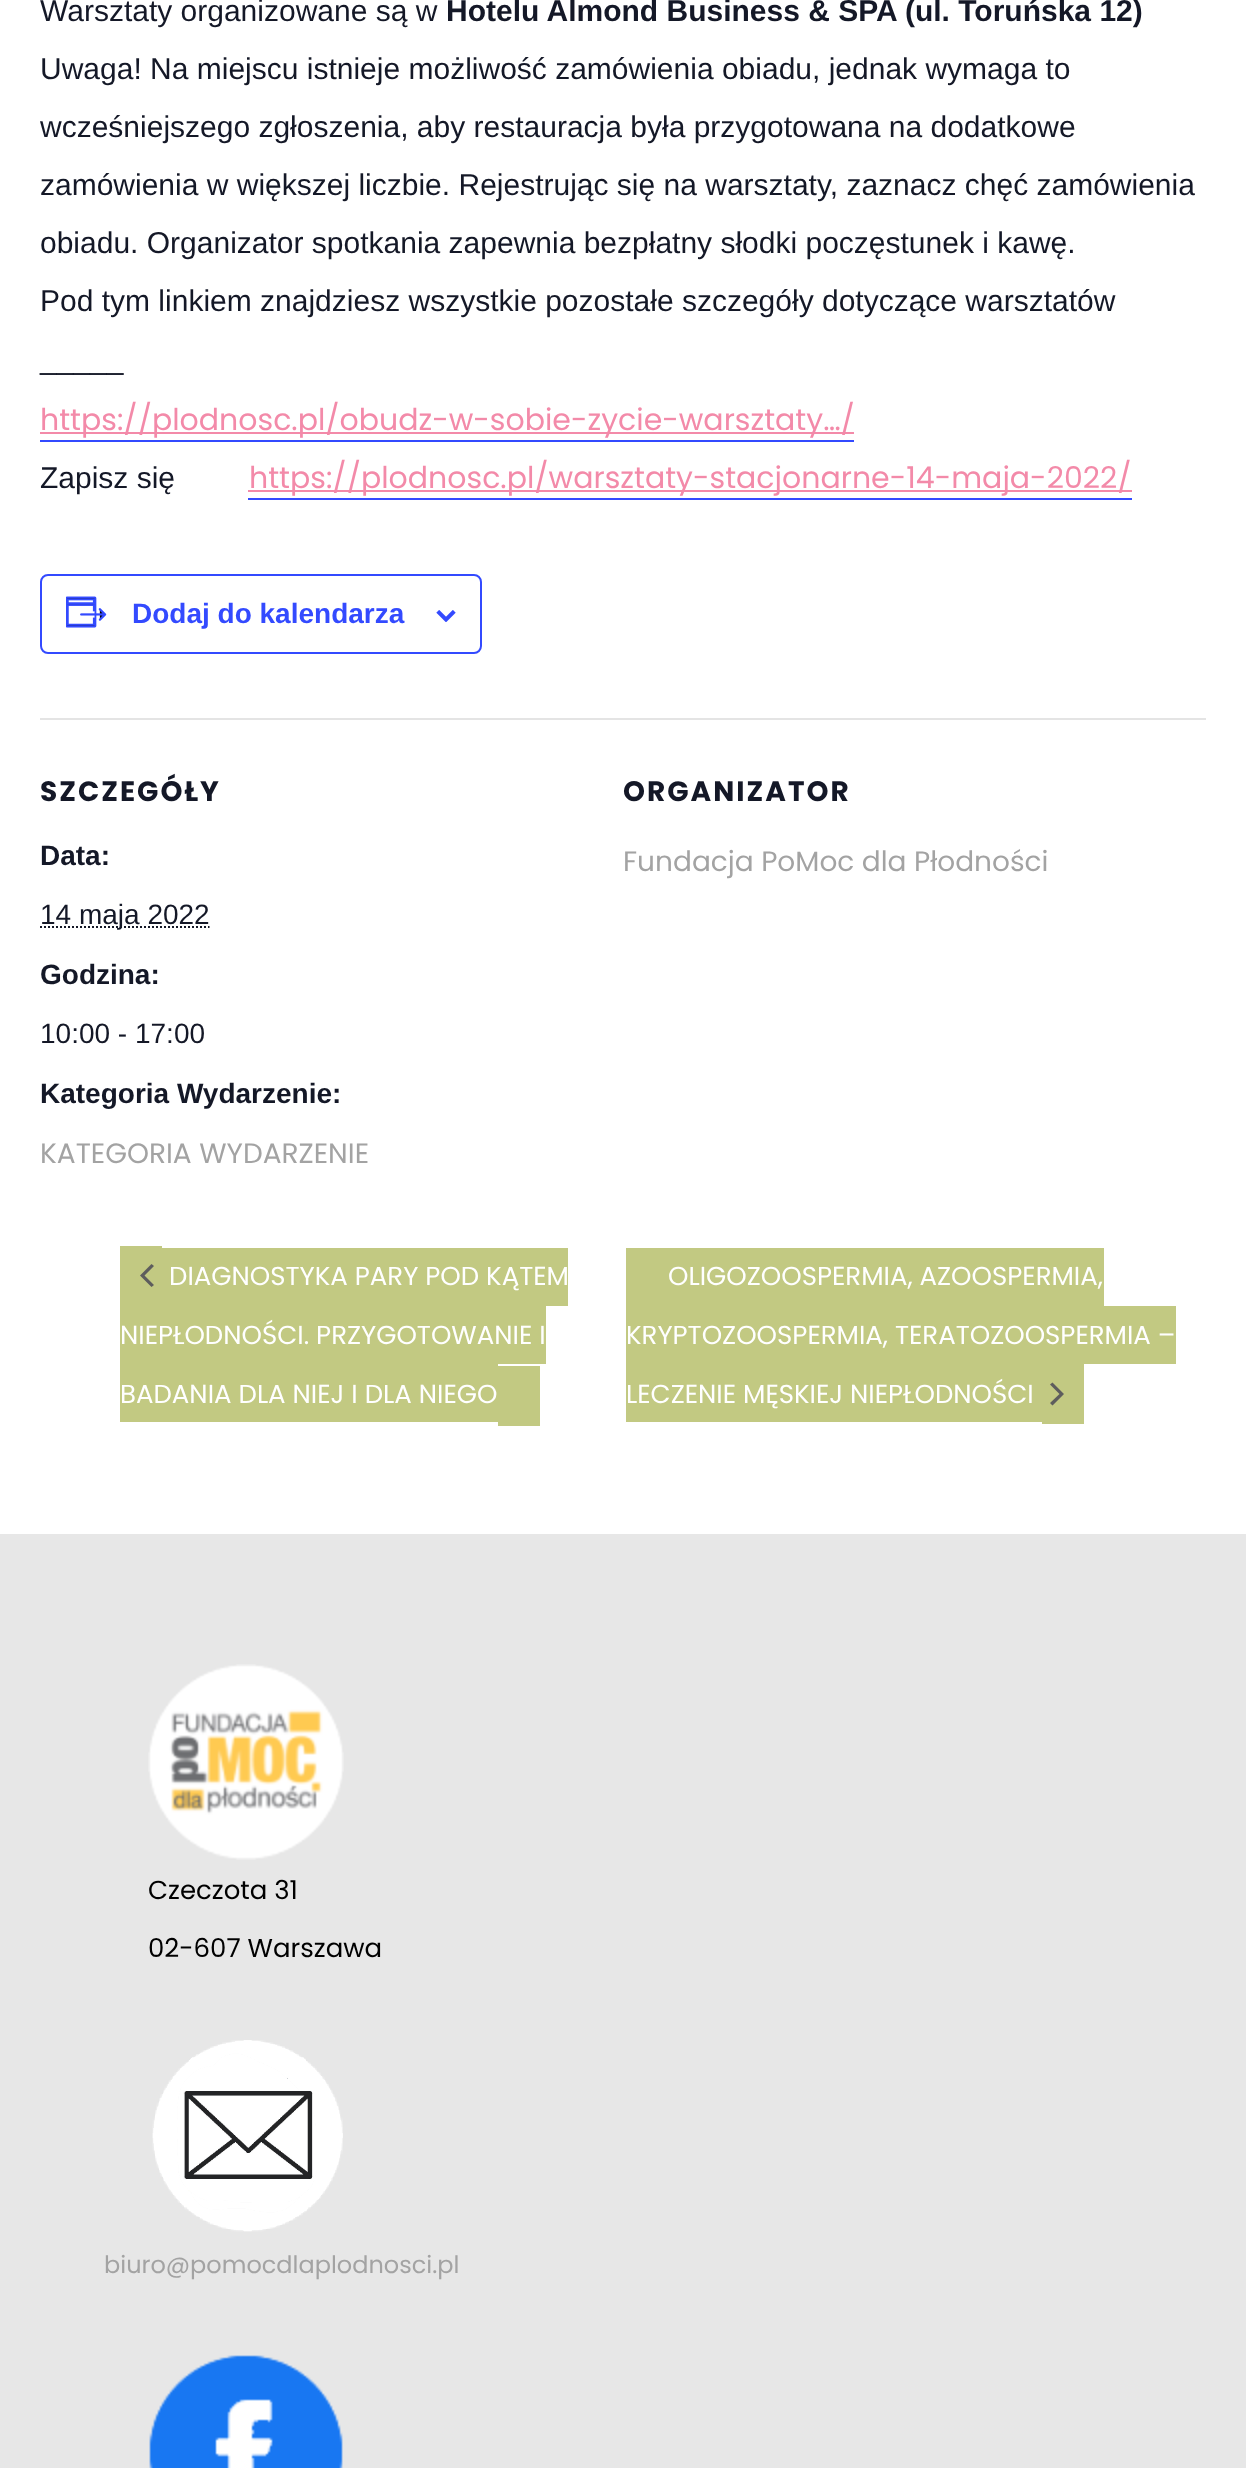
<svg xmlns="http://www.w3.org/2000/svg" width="1246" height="2468">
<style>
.a{font:30px Liberation Sans;fill:#141827}
.b{font:bold 30px Liberation Sans;fill:#141827}
.c{font:30px Poppins;fill:#f38aa9}
.d{font:bold 28px Liberation Sans;fill:#334aff}
.e{font:bold 28px Poppins;letter-spacing:2px;fill:#141827}
.f{font:bold 28px Liberation Sans;fill:#141827}
.g{font:28px Liberation Sans;fill:#141827}
.h{font:28px Poppins;fill:#a3a3a3}
.i{font:26px Poppins;fill:#fff}
.j{font:26px Poppins;fill:#000}
.k{font:24px Poppins;fill:#a3a3a3}
</style>
<rect width="100%" height="100%" fill="#fff"/>
<path fill="#334aff" d="M40 440h814v2H40z"/>
<path fill="#f38aa9" d="M40 432h814v2H40z"/>
<path fill="#334aff" d="M248 498h884v2H248z"/>
<path fill="#f38aa9" d="M248 490h884v2H248z"/>
<rect fill="none" stroke="#334aff" stroke-width="2" x="41" y="575" width="440" height="78" rx="7"/>
<image href="1.png" x="66" y="596" width="41" height="32"/>
<image href="2.png" x="436" y="610" width="20" height="12"/>
<path fill="#e4e4e4" d="M40 718h1166v2H40z"/>
<path fill="none" stroke="#141827" stroke-width="2" stroke-dasharray="2 2" d="M40 927h169.5"/>
<path fill="#c2c982" d="M120 1246h42v60H120z"/>
<path fill="#c2c982" d="M162 1248h406v58H162z"/>
<path fill="#c2c982" d="M120 1306h426v58H120z"/>
<path fill="#c2c982" d="M120 1364h378v58H120z"/>
<path fill="#c2c982" d="M498 1366h42v60H498z"/>
<path fill="#5d5d5d" d="M154 1285l-2.5 2l-11.5-11.5l11.5-11.5l2.5 2l-9.5 9.5z"/>
<path fill="#c2c982" d="M626 1248h478v58H626z"/>
<path fill="#c2c982" d="M626 1306h550v58H626z"/>
<path fill="#c2c982" d="M626 1364h416v58H626z"/>
<path fill="#c2c982" d="M1042 1364h42v60H1042z"/>
<path fill="#5d5d5d" d="M1050 1384.5l2.5-2l11.5 11.5l-11.5 11.5l-2.5-2.5l9.5-9z"/>
<path fill="#e7e7e7" d="M0 1534h1246v934H0z"/>
<image href="3.png" x="148" y="1664" width="196" height="196"/>
<image href="4.png" x="152" y="2040" width="191" height="192"/>
<image href="5.png" x="149" y="2355" width="194" height="113"/>
<text class="a" x="40" y="21">Warsztaty organizowane są w</text>
<text class="b" x="446" y="21">Hotelu Almond Business &amp; SPA (ul. Toruńska 12)</text>
<text class="a" x="40" y="79">Uwaga! Na miejscu istnieje możliwość zamówienia obiadu, jednak wymaga to</text>
<text class="a" x="40" y="137">wcześniejszego zgłoszenia, aby restauracja była przygotowana na dodatkowe</text>
<text class="a" x="40" y="195">zamówienia w większej liczbie. Rejestrując się na warsztaty, zaznacz chęć zamówienia</text>
<text class="a" x="40" y="253">obiadu. Organizator spotkania zapewnia bezpłatny słodki poczęstunek i kawę.</text>
<text class="a" x="40" y="311">Pod tym linkiem znajdziesz wszystkie pozostałe szczegóły dotyczące warsztatów</text>
<text class="a" x="40" y="369">_____</text>
<text class="c" x="40" y="430">https://plodnosc.pl/obudz-w-sobie-zycie-warsztaty…/</text>
<text class="a" x="40" y="488">Zapisz się</text>
<text class="c" x="249" y="488">https://plodnosc.pl/warsztaty-stacjonarne-14-maja-2022/</text>
<text class="d" x="132" y="623">Dodaj do kalendarza</text>
<text class="e" x="40" y="801">SZCZEGÓŁY</text>
<text class="f" x="40" y="865">Data:</text>
<text class="g" x="40" y="924">14 maja 2022</text>
<text class="f" x="40" y="984">Godzina:</text>
<text class="g" x="40" y="1043">10:00 - 17:00</text>
<text class="f" x="40" y="1103">Kategoria Wydarzenie:</text>
<text class="h" x="40" y="1163">KATEGORIA WYDARZENIE</text>
<text class="e" x="623" y="801">ORGANIZATOR</text>
<text class="h" x="623" y="871">Fundacja PoMoc dla Płodności</text>
<text class="i" x="169" y="1285">DIAGNOSTYKA PARY POD KĄTEM</text>
<text class="i" x="120" y="1344">NIEPŁODNOŚCI. PRZYGOTOWANIE I</text>
<text class="i" x="120" y="1403">BADANIA DLA NIEJ I DLA NIEGO</text>
<text class="i" x="668" y="1285">OLIGOZOOSPERMIA, AZOOSPERMIA,</text>
<text class="i" x="626" y="1344">KRYPTOZOOSPERMIA, TERATOZOOSPERMIA –</text>
<text class="i" x="626" y="1403">LECZENIE MĘSKIEJ NIEPŁODNOŚCI</text>
<text class="j" x="148" y="1899">Czeczota 31</text>
<text class="j" x="148" y="1957">02-607 Warszawa</text>
<text class="k" x="104" y="2273">biuro@pomocdlaplodnosci.pl</text>
</svg>
